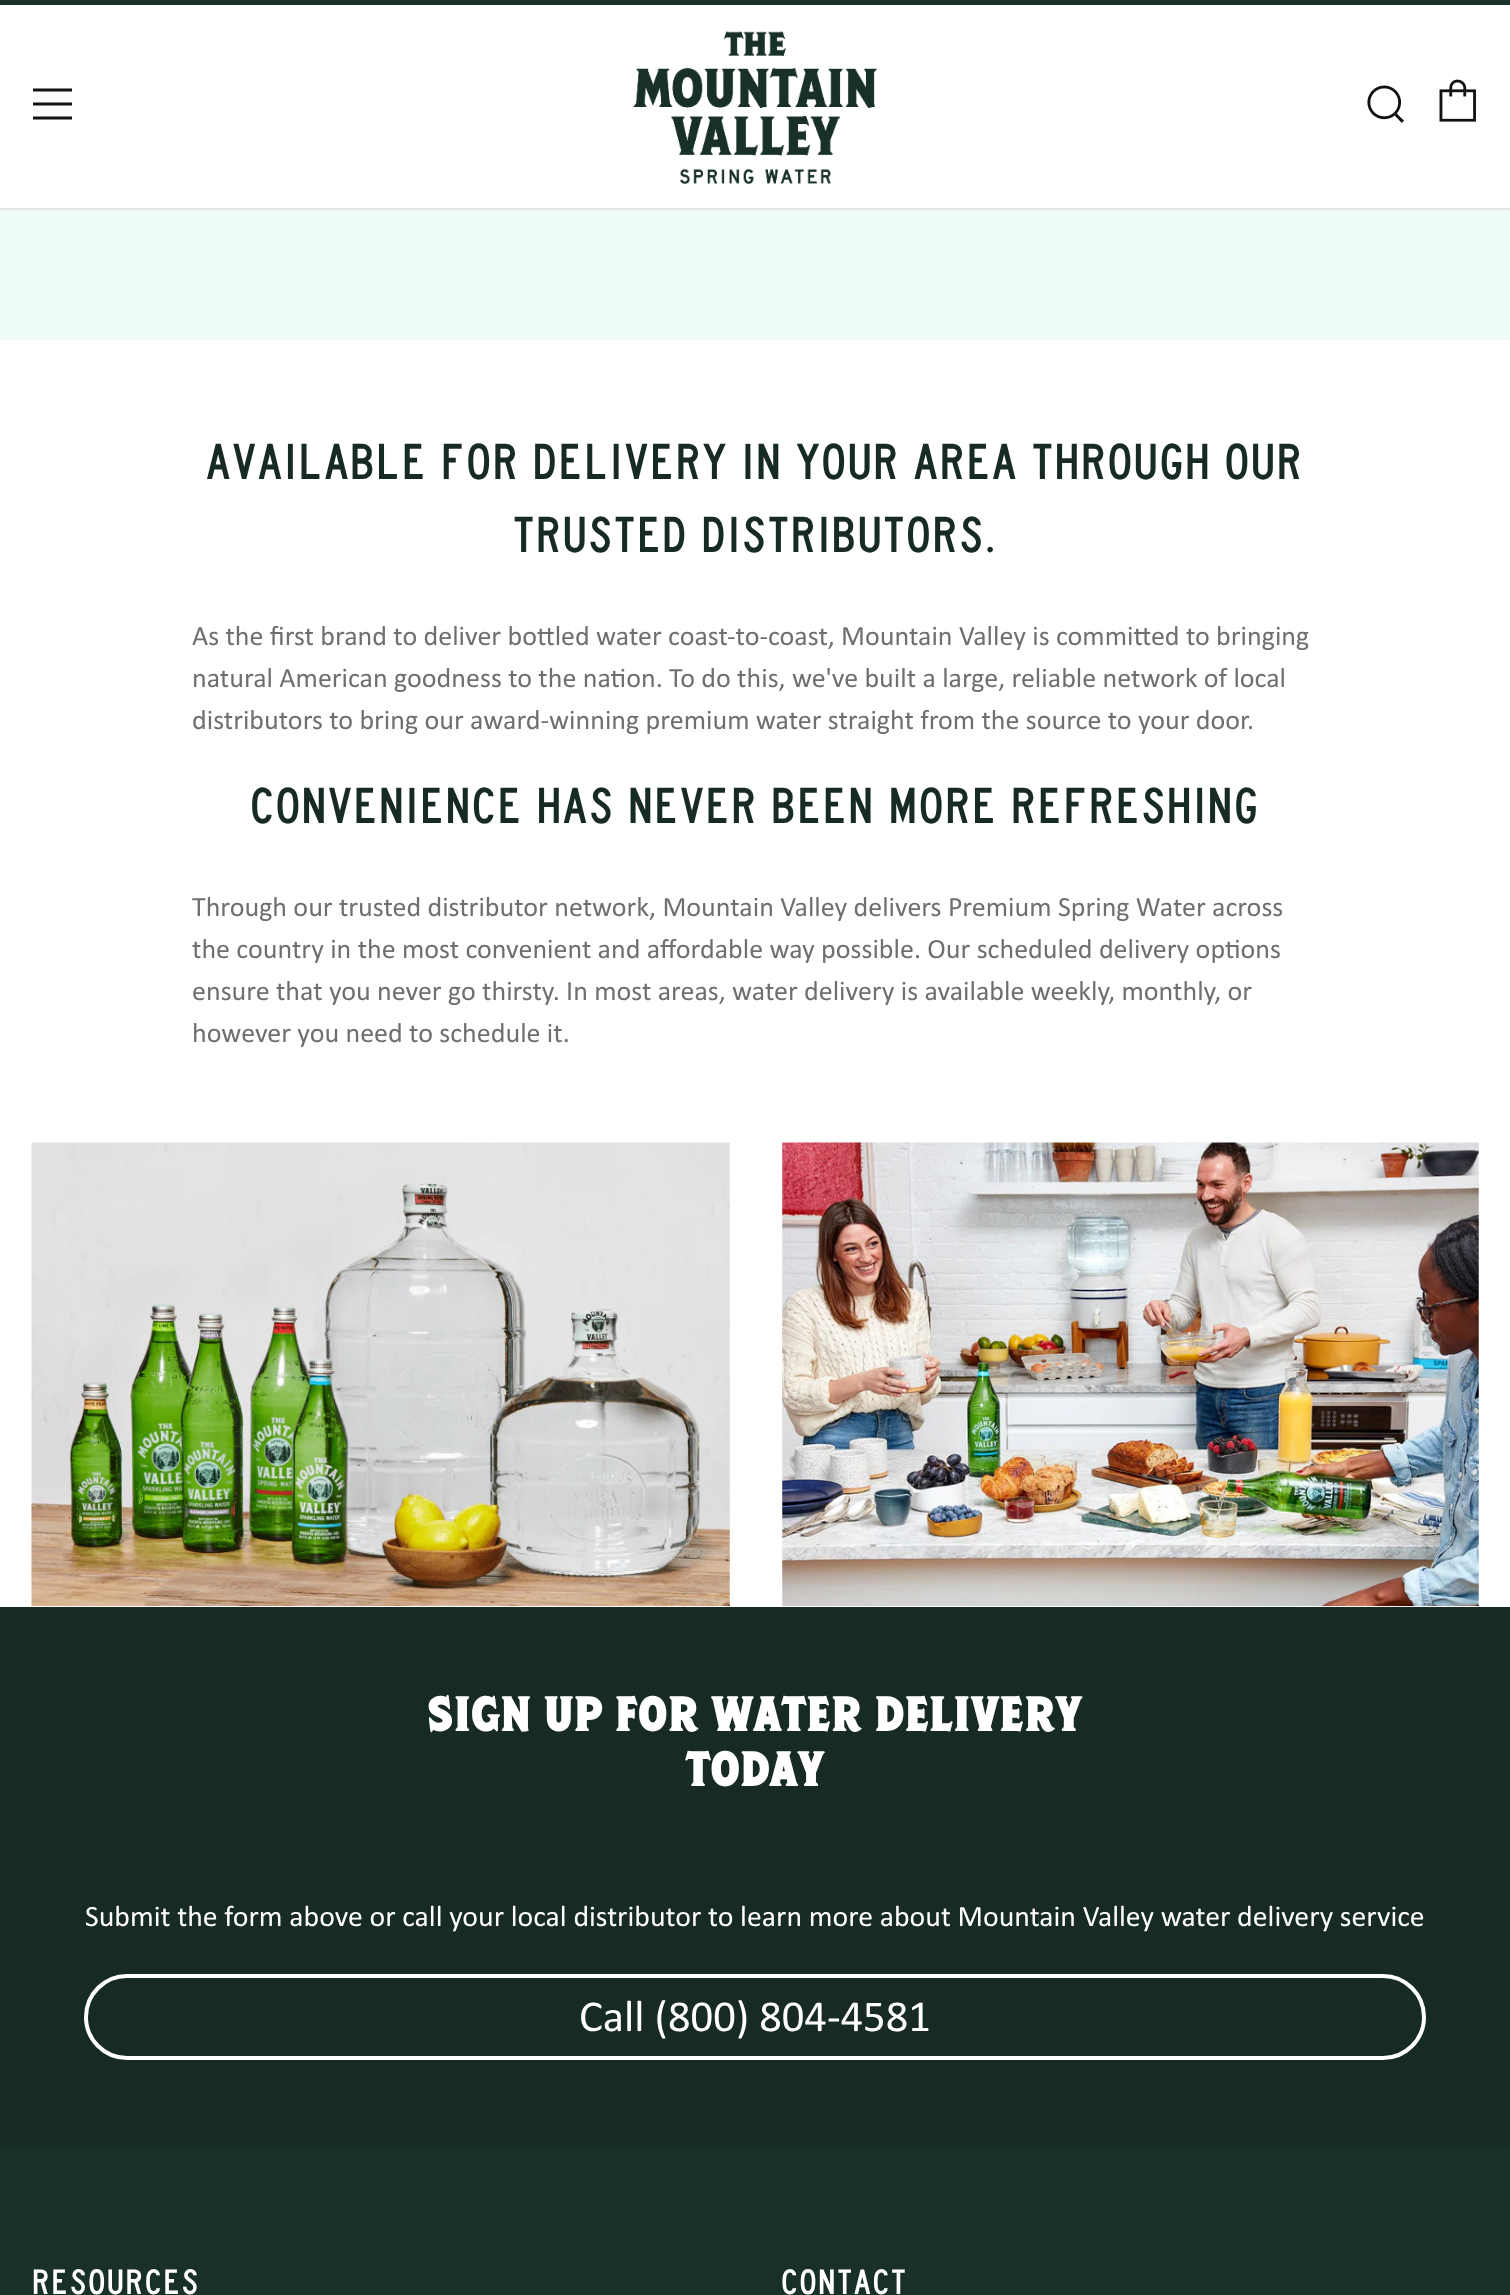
<svg xmlns="http://www.w3.org/2000/svg" width="1510" height="2295">
<style>
.a{font:52.5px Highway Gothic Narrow;letter-spacing:1.75px;fill:#172a24}
.b{font:28px Calibri;fill:#6f6f6f}
.c{font:bold 42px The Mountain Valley;letter-spacing:1.75px;fill:#fff}
.d{font:29.75px Calibri;fill:#fff}
.e{font:44.5px Calibri;fill:#fff}
.f{font:36.75px Highway Gothic Narrow;letter-spacing:1.75px;fill:#fff}
</style>
<rect width="100%" height="100%" fill="#fff"/>
<path fill="#e4e4e4" d="M0 208h1510v2H0z"/>
<path fill="#183028" d="M0 0h1510v5H0z"/>
<path fill="#111" d="M33 91.5h39v-3h-39zm0 28h39v-3h-39zm0-14h39v-3h-39z"/>
<image href="1.png" x="633" y="31" width="244" height="153"/>
<image href="2.png" x="1367" y="85" width="37" height="38"/>
<image href="3.png" x="1439" y="79" width="37" height="43"/>
<path fill="#f0fcfa" d="M0 210h1510v130H0z"/>
<image href="4.png" x="31" y="1142" width="699" height="465"/>
<image href="5.png" x="782" y="1142" width="697" height="465"/>
<path fill="#172a24" d="M0 1607h1510v540H0z"/>
<rect fill="none" stroke="#fff" stroke-width="4" x="86" y="1976" width="1338" height="82" rx="41"/>
<path fill="#183028" d="M0 2147h1510v148H0z"/>
<text class="a" x="206" y="479">AVAILABLE FOR DELIVERY IN YOUR AREA THROUGH OUR</text>
<text class="a" x="513" y="552">TRUSTED DISTRIBUTORS.</text>
<text class="b" x="192" y="645">As the first brand to deliver bottled water coast-to-coast, Mountain Valley is committed to bringing</text>
<text class="b" x="192" y="687">natural American goodness to the nation. To do this, we've built a large, reliable network of local</text>
<text class="b" x="192" y="729">distributors to bring our award-winning premium water straight from the source to your door.</text>
<text class="a" x="250" y="823">CONVENIENCE HAS NEVER BEEN MORE REFRESHING</text>
<text class="b" x="192" y="916">Through our trusted distributor network, Mountain Valley delivers Premium Spring Water across</text>
<text class="b" x="192" y="958">the country in the most convenient and affordable way possible. Our scheduled delivery options</text>
<text class="b" x="192" y="1000">ensure that you never go thirsty. In most areas, water delivery is available weekly, monthly, or</text>
<text class="b" x="192" y="1042">however you need to schedule it.</text>
<text class="c" x="427" y="1731">SIGN UP FOR WATER DELIVERY</text>
<text class="c" x="686" y="1786">TODAY</text>
<text class="d" x="85" y="1926">Submit the form above or call your local distributor to learn more about Mountain Valley water delivery service</text>
<text class="e" x="579" y="2031">Call (800) 804-4581</text>
<text class="f" x="32" y="2294">RESOURCES</text>
<text class="f" x="781" y="2294">CONTACT</text>
</svg>
